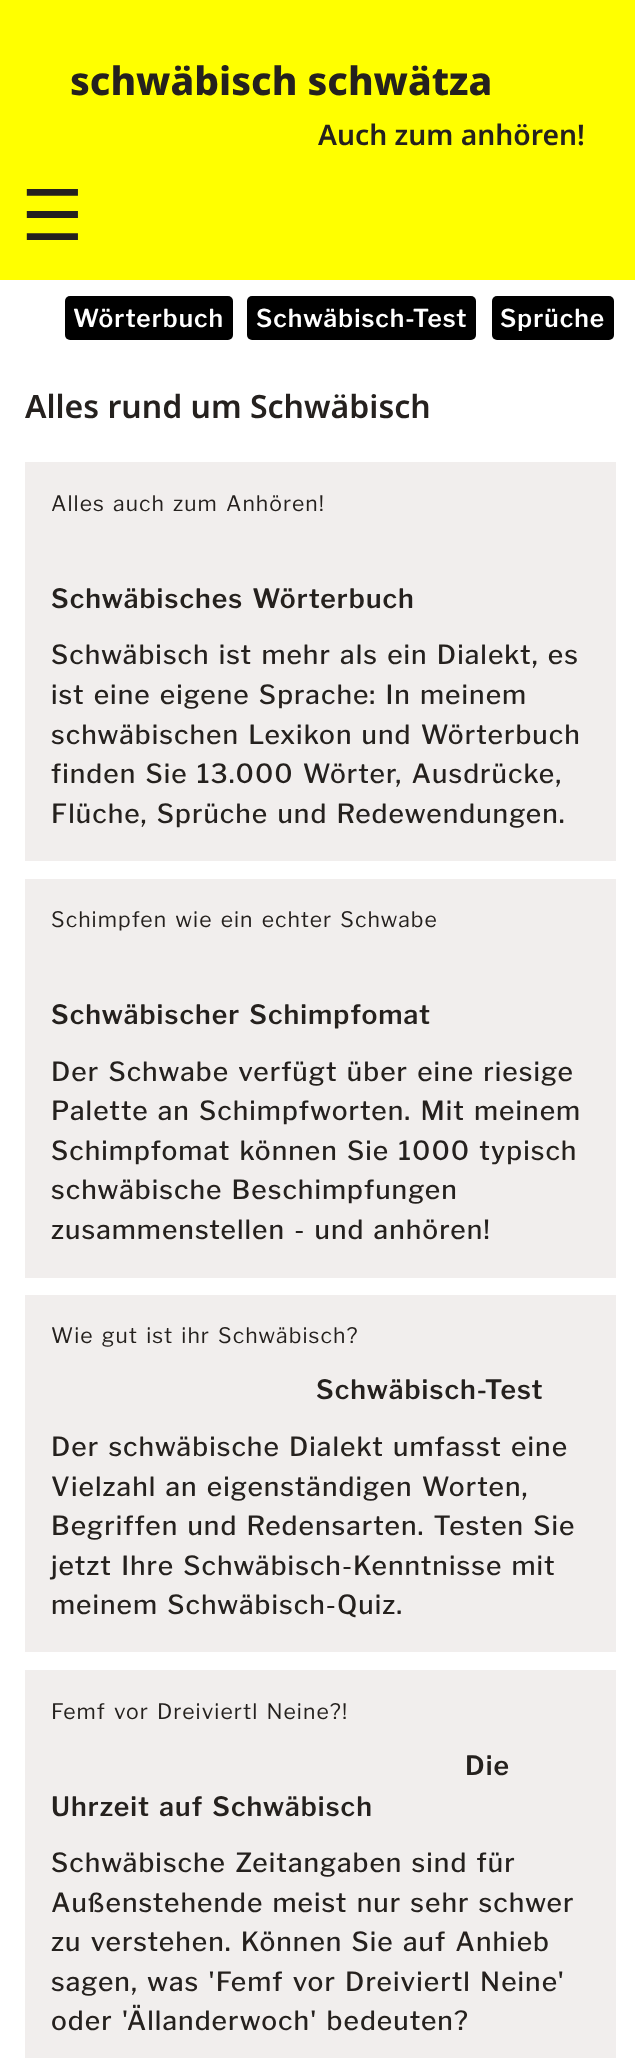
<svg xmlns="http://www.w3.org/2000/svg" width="635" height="2058">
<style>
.a{font:800 39px Noto Sans;fill:#25211e}
.b{font:600 28.25px Noto Sans;fill:#25211e}
.c{font:70px DejaVu Sans;fill:#25211e}
.d{font:600 24.5px Libre Franklin;letter-spacing:1.05px;fill:#fff}
.e{font:600 32px Noto Sans;fill:#25211e}
.f{font:21.2px Libre Franklin;letter-spacing:1.05px;fill:#25211e}
.g{font:600 26.5px Libre Franklin;letter-spacing:1.05px;fill:#25211e}
.h{font:500 26.4px Libre Franklin;letter-spacing:1.05px;fill:#25211e}
</style>
<rect width="100%" height="100%" fill="#fff"/>
<path fill="#ff0" d="M0 0h635v280H0z"/>
<rect fill="#000" x="65" y="296" width="168" height="44" rx="5"/>
<rect fill="#000" x="247" y="296" width="229" height="44" rx="5"/>
<rect fill="#000" x="492" y="296" width="122" height="44" rx="5"/>
<path fill="#f1eeed" d="M25 462h591v399H25z"/>
<path fill="#f1eeed" d="M25 879h591v399H25z"/>
<path fill="#f1eeed" d="M25 1295h591v357H25z"/>
<path fill="#f1eeed" d="M25 1670h591v388H25z"/>
<text class="a" x="70" y="95">schwäbisch schwätza</text>
<text class="b" x="318" y="145">Auch zum anhören!</text>
<text class="c" x="21" y="240">☰</text>
<text class="d" x="73" y="327">Wörterbuch</text>
<text class="d" x="256" y="327">Schwäbisch-Test</text>
<text class="d" x="500" y="327">Sprüche</text>
<text class="e" x="25" y="418">Alles rund um Schwäbisch</text>
<text class="f" x="51" y="511" word-spacing="2.5">Alles auch zum Anhören!</text>
<text class="g" x="51" y="608" word-spacing="2.5">Schwäbisches Wörterbuch</text>
<text class="h" x="51" y="664" word-spacing="2.5">Schwäbisch ist mehr als ein Dialekt, es</text>
<text class="h" x="51" y="704" word-spacing="2.5">ist eine eigene Sprache: In meinem</text>
<text class="h" x="51" y="744" word-spacing="2.5">schwäbischen Lexikon und Wörterbuch</text>
<text class="h" x="51" y="783" word-spacing="2.5">finden Sie 13.000 Wörter, Ausdrücke,</text>
<text class="h" x="51" y="823" word-spacing="2.5">Flüche, Sprüche und Redewendungen.</text>
<text class="f" x="51" y="927" word-spacing="2.5">Schimpfen wie ein echter Schwabe</text>
<text class="g" x="51" y="1024" word-spacing="2.5">Schwäbischer Schimpfomat</text>
<text class="h" x="51" y="1081" word-spacing="2.5">Der Schwabe verfügt über eine riesige</text>
<text class="h" x="51" y="1120" word-spacing="2.5">Palette an Schimpfworten. Mit meinem</text>
<text class="h" x="51" y="1160" word-spacing="2.5">Schimpfomat können Sie 1000 typisch</text>
<text class="h" x="51" y="1199" word-spacing="2.5">schwäbische Beschimpfungen</text>
<text class="h" x="51" y="1239" word-spacing="2.5">zusammenstellen - und anhören!</text>
<text class="f" x="51" y="1343" word-spacing="2.5">Wie gut ist ihr Schwäbisch?</text>
<text class="g" x="316" y="1399">Schwäbisch-Test</text>
<text class="h" x="51" y="1456" word-spacing="2.5">Der schwäbische Dialekt umfasst eine</text>
<text class="h" x="51" y="1496" word-spacing="2.5">Vielzahl an eigenständigen Worten,</text>
<text class="h" x="51" y="1535" word-spacing="2.5">Begriffen und Redensarten. Testen Sie</text>
<text class="h" x="51" y="1575" word-spacing="2.5">jetzt Ihre Schwäbisch-Kenntnisse mit</text>
<text class="h" x="51" y="1614" word-spacing="2.5">meinem Schwäbisch-Quiz.</text>
<text class="f" x="51" y="1719" word-spacing="2.5">Femf vor Dreiviertl Neine?!</text>
<text class="g" x="465" y="1775">Die</text>
<text class="g" x="51" y="1816" word-spacing="2.5">Uhrzeit auf Schwäbisch</text>
<text class="h" x="51" y="1872" word-spacing="2.5">Schwäbische Zeitangaben sind für</text>
<text class="h" x="51" y="1912" word-spacing="2.5">Außenstehende meist nur sehr schwer</text>
<text class="h" x="51" y="1951" word-spacing="2.5">zu verstehen. Können Sie auf Anhieb</text>
<text class="h" x="51" y="1991" word-spacing="2.5">sagen, was 'Femf vor Dreiviertl Neine'</text>
<text class="h" x="51" y="2030" word-spacing="2.5">oder 'Ällanderwoch' bedeuten?</text>
</svg>
